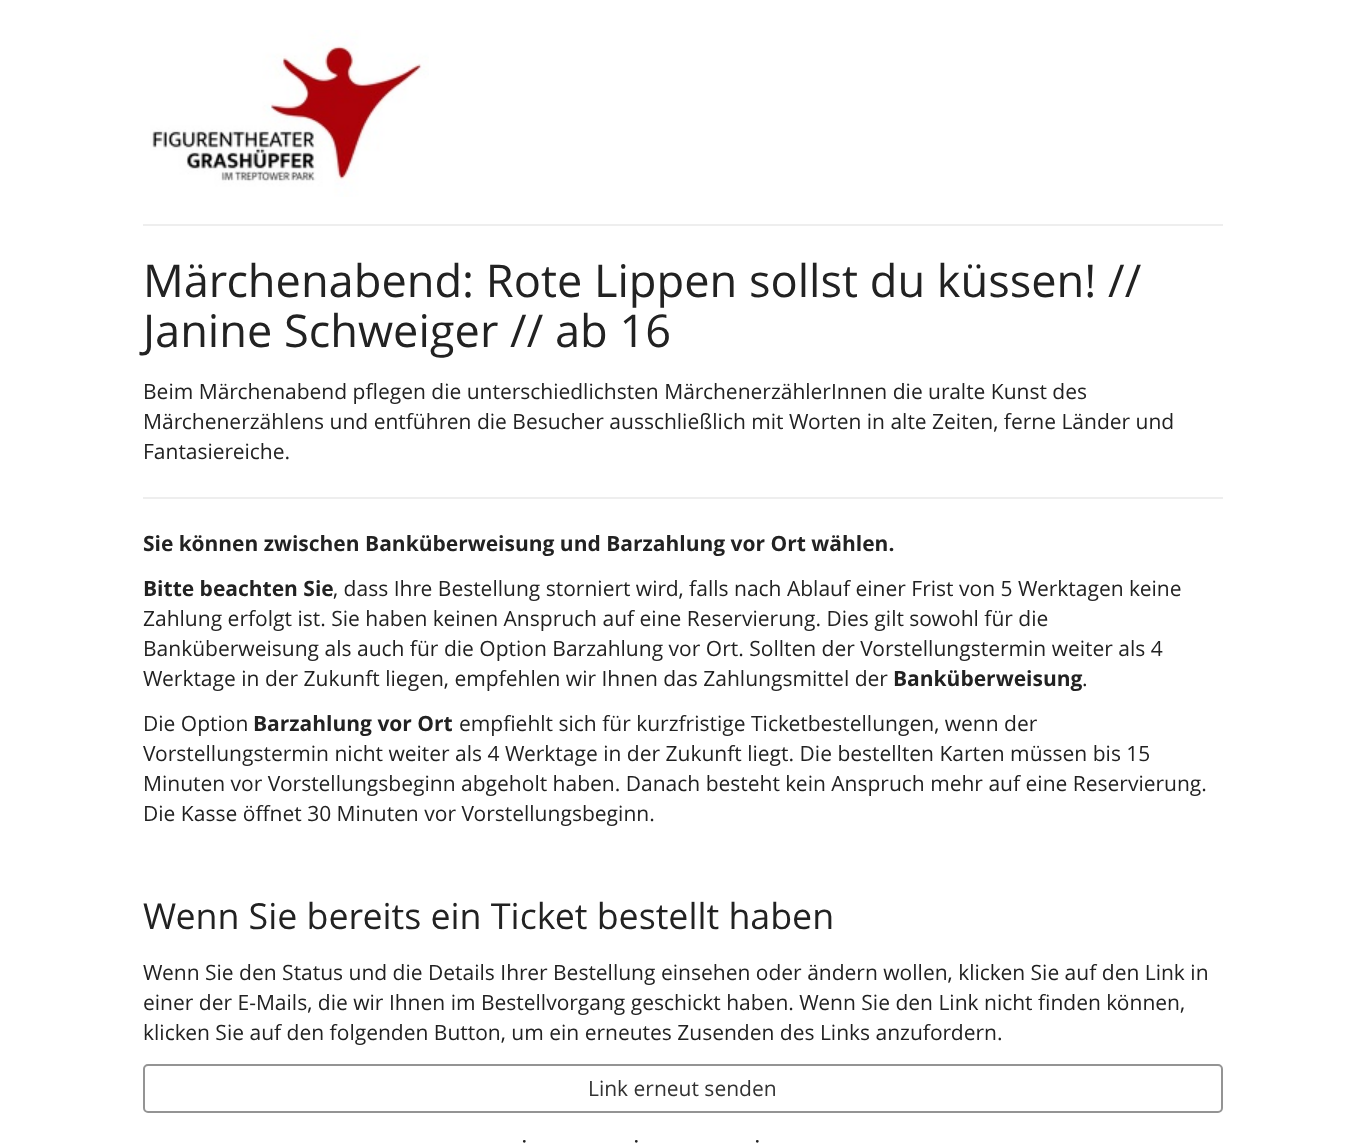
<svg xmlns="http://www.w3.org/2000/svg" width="1364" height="1143">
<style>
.a{font:45.15px Open Sans;fill:#222}
.b{font:21px Open Sans;fill:#222}
.c{font:bold 21px Open Sans;fill:#222}
.d{font:35.75px Open Sans;fill:#222}
.e{font:21px Open Sans;fill:#333}
.f{font:bold 16px Open Sans;fill:#222}
</style>
<rect width="100%" height="100%" fill="#fff"/>
<path fill="#eee" d="M143 224h1080v2H143z"/>
<image href="1.png" x="150" y="30" width="279" height="167"/>
<path fill="#eee" d="M143 497h1080v2H143z"/>
<rect fill="none" stroke="#949494" stroke-width="2" x="144" y="1065" width="1078" height="47" rx="4"/>
<text class="a" x="143" y="297">Märchenabend: Rote Lippen sollst du küssen! //</text>
<text class="a" x="143" y="347">Janine Schweiger // ab 16</text>
<text class="b" x="143" y="399">Beim Märchenabend pflegen die unterschiedlichsten MärchenerzählerInnen die uralte Kunst des</text>
<text class="b" x="143" y="429">Märchenerzählens und entführen die Besucher ausschließlich mit Worten in alte Zeiten, ferne Länder und</text>
<text class="b" x="143" y="459">Fantasiereiche.</text>
<text class="c" x="143" y="551">Sie können zwischen Banküberweisung und Barzahlung vor Ort wählen.</text>
<text class="c" x="143" y="596">Bitte beachten Sie</text>
<text class="b" x="333" y="596">, dass Ihre Bestellung storniert wird, falls nach Ablauf einer Frist von 5 Werktagen keine</text>
<text class="b" x="143" y="626">Zahlung erfolgt ist. Sie haben keinen Anspruch auf eine Reservierung. Dies gilt sowohl für die</text>
<text class="b" x="143" y="656">Banküberweisung als auch für die Option Barzahlung vor Ort. Sollten der Vorstellungstermin weiter als 4</text>
<text class="b" x="143" y="686">Werktage in der Zukunft liegen, empfehlen wir Ihnen das Zahlungsmittel der</text>
<text class="c" x="893" y="686">Banküberweisung</text>
<text class="b" x="1082" y="686">.</text>
<text class="b" x="143" y="731">Die Option</text>
<text class="c" x="253" y="731">Barzahlung vor Ort</text>
<text class="b" x="459" y="731">empfiehlt sich für kurzfristige Ticketbestellungen, wenn der</text>
<text class="b" x="143" y="761">Vorstellungstermin nicht weiter als 4 Werktage in der Zukunft liegt. Die bestellten Karten müssen bis 15</text>
<text class="b" x="143" y="791">Minuten vor Vorstellungsbeginn abgeholt haben. Danach besteht kein Anspruch mehr auf eine Reservierung.</text>
<text class="b" x="143" y="821">Die Kasse öffnet 30 Minuten vor Vorstellungsbeginn.</text>
<text class="d" x="143" y="929">Wenn Sie bereits ein Ticket bestellt haben</text>
<text class="b" x="143" y="980">Wenn Sie den Status und die Details Ihrer Bestellung einsehen oder ändern wollen, klicken Sie auf den Link in</text>
<text class="b" x="143" y="1010">einer der E-Mails, die wir Ihnen im Bestellvorgang geschickt haben. Wenn Sie den Link nicht finden können,</text>
<text class="b" x="143" y="1040">klicken Sie auf den folgenden Button, um ein erneutes Zusenden des Links anzufordern.</text>
<text class="e" x="588" y="1096">Link erneut senden</text>
<text class="f" x="522" y="1147">·</text>
<text class="f" x="634" y="1147">·</text>
<text class="f" x="755" y="1147">·</text>
</svg>
